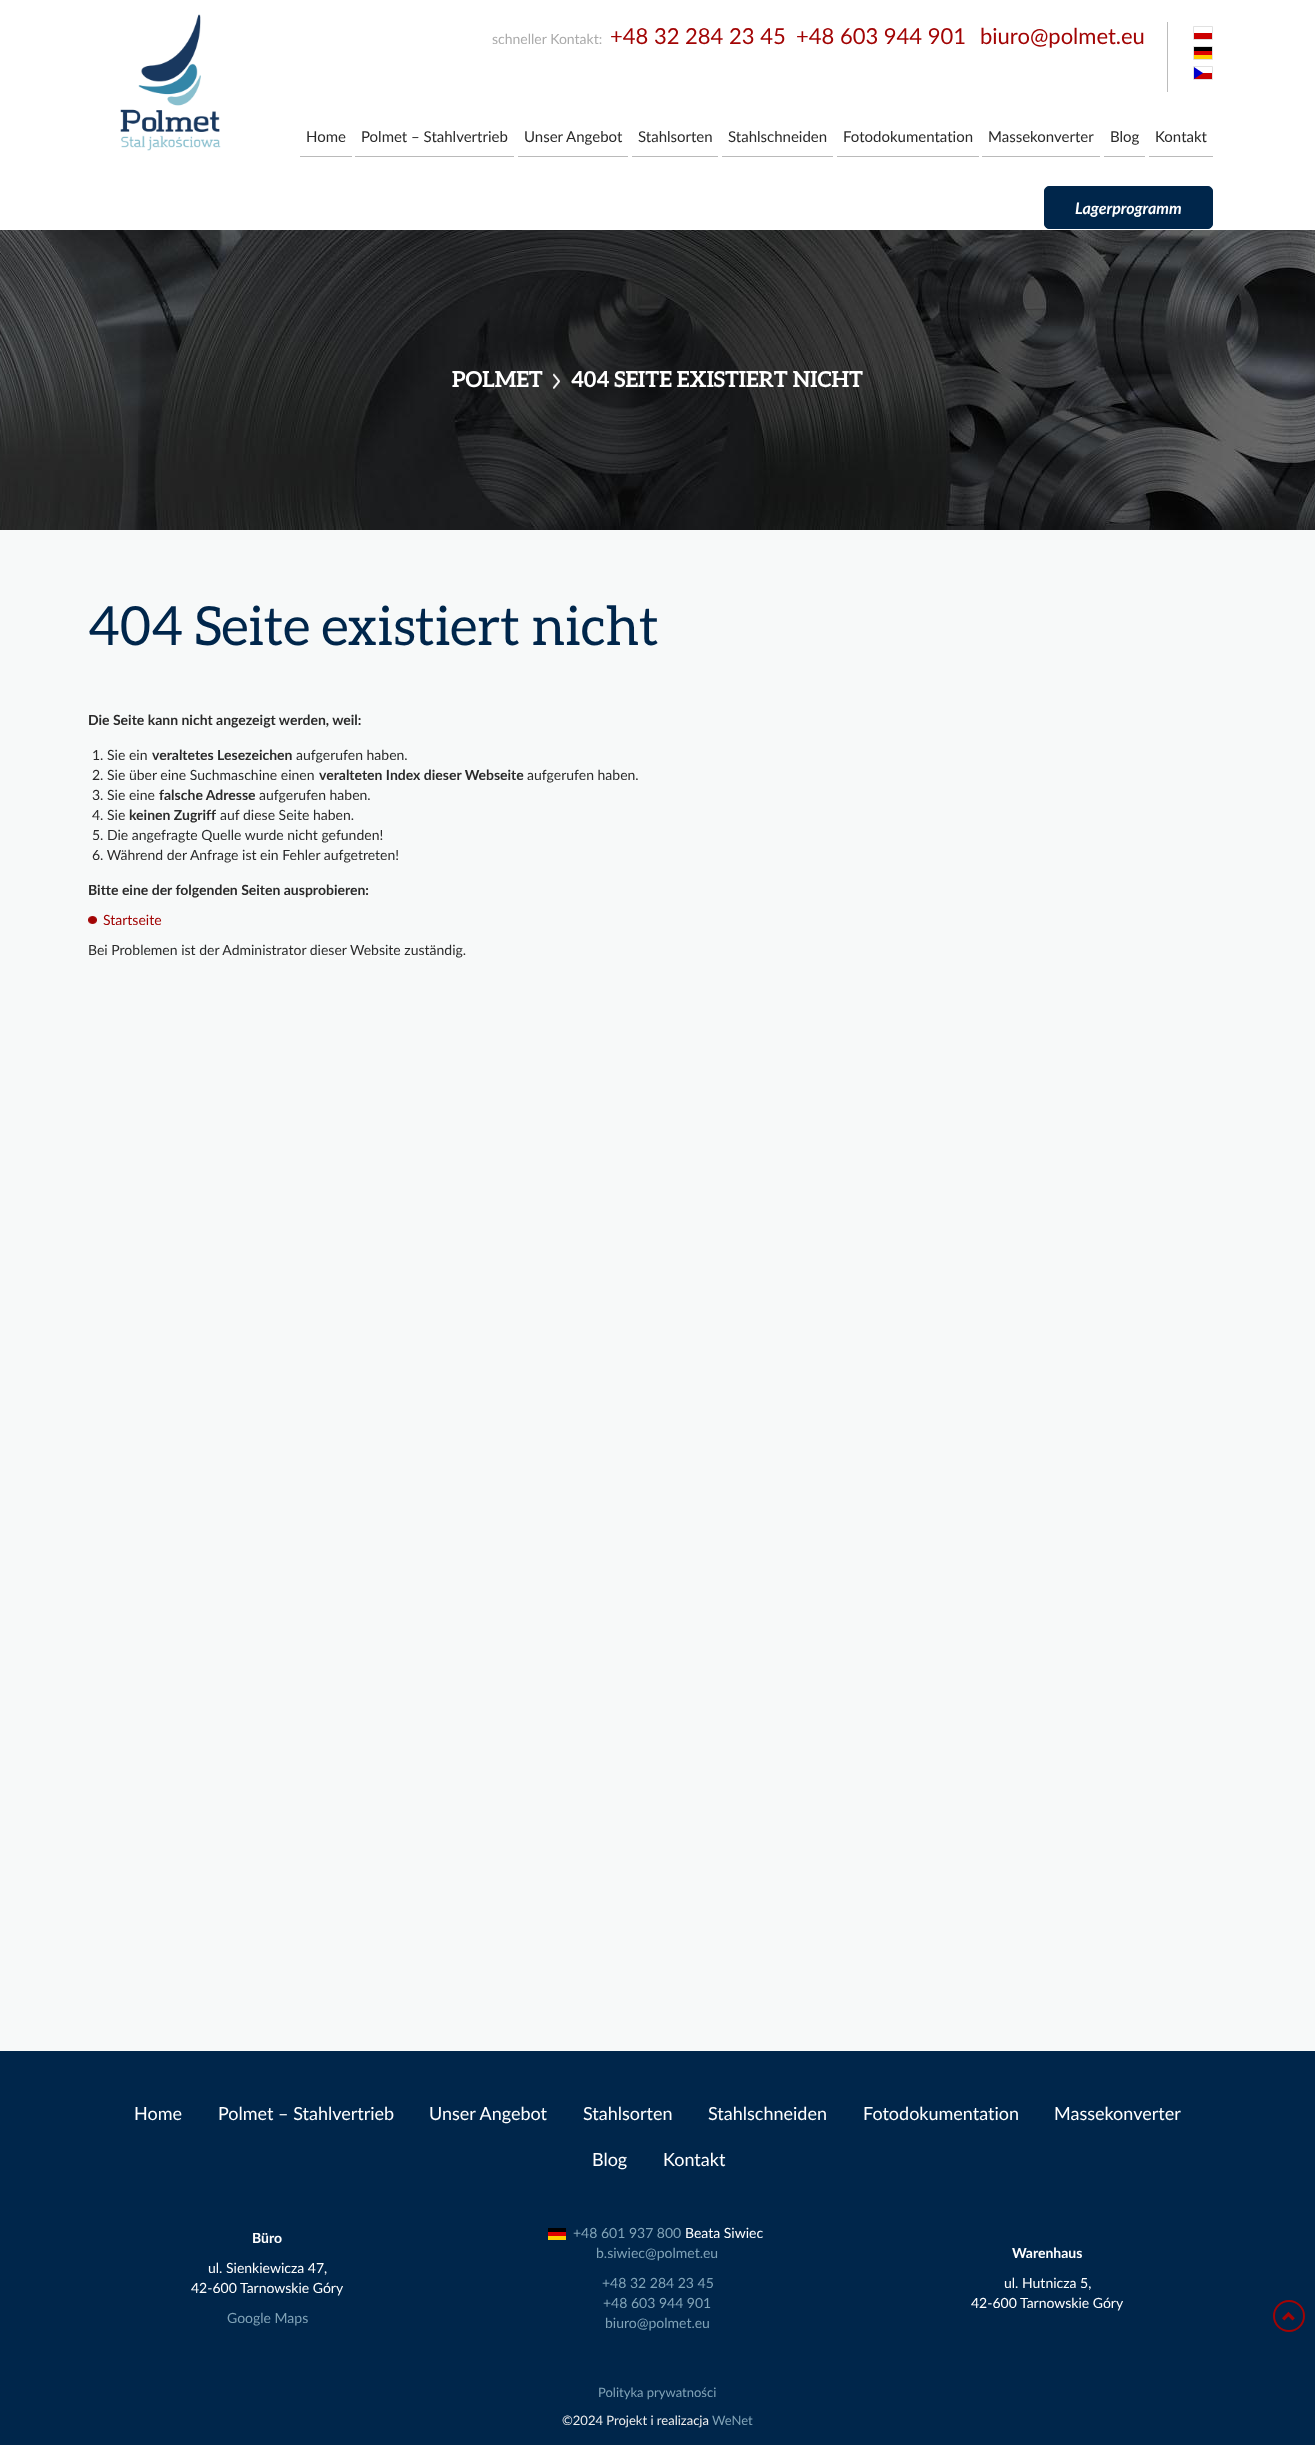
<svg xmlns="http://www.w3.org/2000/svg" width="1315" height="2445">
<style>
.a{font:14px Lato;fill:#ababab}
.b{font:22px Lato;fill:#a20404}
.c{font:15px Lato;fill:#2a2a2a}
.d{font:italic bold 16px Lato;fill:#fff}
.e{font:bold 22px Aleo;fill:#fff}
.f{font:54px Aleo;fill:#00264b}
.g{font:bold 14px Lato;fill:#2a2a2a}
.h{font:14px Lato;fill:#2a2a2a}
.i{font:14px Lato;fill:#a20404}
.j{font:18px Lato;fill:#fff}
.k{font:bold 14px Lato;fill:#fff}
.l{font:14px Lato;fill:#fff}
.m{font:14px Lato;fill:#80a3b7}
.n{font:13px Lato;fill:#80a3b7}
.o{font:13px Lato;fill:#ededed}
</style>
<rect width="100%" height="100%" fill="#f7f9f9"/>
<path fill="#fff" d="M0 0h1315v230H0z"/>
<image href="1.png" x="120" y="14" width="101" height="137"/>
<path fill="#bcbcbc" d="M1167 22h1v70H1167z"/>
<path fill="none" stroke="#e1e1e1" d="M1193.5 26.5h19v13H1193.5z"/>
<path fill="#c00" d="M1194 33h18v6H1194z"/>
<path fill="none" stroke="#e1e1e1" d="M1193.5 46.5h19v13H1193.5z"/>
<image href="2.png" x="1194" y="47" width="18" height="12"/>
<path fill="none" stroke="#e1e1e1" d="M1193.5 66.5h19v13H1193.5z"/>
<image href="3.png" x="1194" y="67" width="18" height="12"/>
<path fill="#bababa" d="M300 156h52v1H300z"/>
<path fill="#bababa" d="M355 156h159v1H355z"/>
<path fill="#bababa" d="M518 156h110v1H518z"/>
<path fill="#bababa" d="M632 156h86v1H632z"/>
<path fill="#bababa" d="M722 156h111v1H722z"/>
<path fill="#bababa" d="M837 156h142v1H837z"/>
<path fill="#bababa" d="M982 156h118v1H982z"/>
<path fill="#bababa" d="M1104 156h41v1H1104z"/>
<path fill="#bababa" d="M1149 156h64v1H1149z"/>
<rect fill="#00264b" stroke="#00264b" x="1044.5" y="186.5" width="168" height="42" rx="4.5"/>
<image href="4.png" x="0" y="230" width="1315" height="300"/>
<image href="5.png" x="553" y="373" width="7" height="16"/>
<image href="6.png" x="88" y="916" width="9" height="8"/>
<path fill="#00264b" d="M0 2051h1315v394H0z"/>
<image href="2.png" x="548" y="2228" width="18" height="12"/>
<circle fill="none" stroke="#a20404" stroke-width="2" cx="1289" cy="2316" r="15"/>
<image href="7.png" x="1282" y="2311" width="13" height="10"/>
<text class="a" x="492" y="44">schneller Kontakt:</text>
<text class="b" x="610" y="44">+48 32 284 23 45</text>
<text class="b" x="796" y="44">+48 603 944 901</text>
<text class="b" x="980" y="44">biuro@polmet.eu</text>
<text class="c" x="306" y="142">Home</text>
<text class="c" x="361" y="142">Polmet – Stahlvertrieb</text>
<text class="c" x="524" y="142">Unser Angebot</text>
<text class="c" x="638" y="142">Stahlsorten</text>
<text class="c" x="728" y="142">Stahlschneiden</text>
<text class="c" x="843" y="142">Fotodokumentation</text>
<text class="c" x="988" y="142">Massekonverter</text>
<text class="c" x="1110" y="142">Blog</text>
<text class="c" x="1155" y="142">Kontakt</text>
<text class="d" x="1075" y="214">Lagerprogramm</text>
<text class="e" x="452" y="387">POLMET</text>
<text class="e" x="571" y="387">404 SEITE EXISTIERT NICHT</text>
<text class="f" x="88" y="645">404 Seite existiert nicht</text>
<text class="g" x="88" y="725">Die Seite kann nicht angezeigt werden, weil:</text>
<text class="h" x="92" y="760">1. Sie ein</text>
<text class="g" x="152" y="760">veraltetes Lesezeichen</text>
<text class="h" x="296" y="760">aufgerufen haben.</text>
<text class="h" x="92" y="780">2. Sie über eine Suchmaschine einen</text>
<text class="g" x="319" y="780">veralteten Index dieser Webseite</text>
<text class="h" x="527" y="780">aufgerufen haben.</text>
<text class="h" x="92" y="800">3. Sie eine</text>
<text class="g" x="159" y="800">falsche Adresse</text>
<text class="h" x="259" y="800">aufgerufen haben.</text>
<text class="h" x="92" y="820">4. Sie</text>
<text class="g" x="129" y="820">keinen Zugriff</text>
<text class="h" x="220" y="820">auf diese Seite haben.</text>
<text class="h" x="92" y="840">5. Die angefragte Quelle wurde nicht gefunden!</text>
<text class="h" x="92" y="860">6. Während der Anfrage ist ein Fehler aufgetreten!</text>
<text class="g" x="88" y="895">Bitte eine der folgenden Seiten ausprobieren:</text>
<text class="i" x="103" y="925">Startseite</text>
<text class="h" x="88" y="955">Bei Problemen ist der Administrator dieser Website zuständig.</text>
<text class="j" x="134" y="2120">Home</text>
<text class="j" x="218" y="2120">Polmet – Stahlvertrieb</text>
<text class="j" x="429" y="2120">Unser Angebot</text>
<text class="j" x="583" y="2120">Stahlsorten</text>
<text class="j" x="708" y="2120">Stahlschneiden</text>
<text class="j" x="863" y="2120">Fotodokumentation</text>
<text class="j" x="1054" y="2120">Massekonverter</text>
<text class="j" x="592" y="2166">Blog</text>
<text class="j" x="663" y="2166">Kontakt</text>
<text class="k" x="252" y="2243">Büro</text>
<text class="l" x="208" y="2273">ul. Sienkiewicza 47,</text>
<text class="l" x="191" y="2293">42-600 Tarnowskie Góry</text>
<text class="m" x="227" y="2323">Google Maps</text>
<text class="m" x="573" y="2238">+48 601 937 800</text>
<text class="l" x="685" y="2238">Beata Siwiec</text>
<text class="m" x="596" y="2258">b.siwiec@polmet.eu</text>
<text class="m" x="602" y="2288">+48 32 284 23 45</text>
<text class="m" x="603" y="2308">+48 603 944 901</text>
<text class="m" x="605" y="2328">biuro@polmet.eu</text>
<text class="k" x="1012" y="2258">Warenhaus</text>
<text class="l" x="1004" y="2288">ul. Hutnicza 5,</text>
<text class="l" x="971" y="2308">42-600 Tarnowskie Góry</text>
<text class="n" x="598" y="2397">Polityka prywatności</text>
<text class="o" x="562" y="2425">©2024 Projekt i realizacja</text>
<text class="n" x="712" y="2425">WeNet</text>
</svg>
